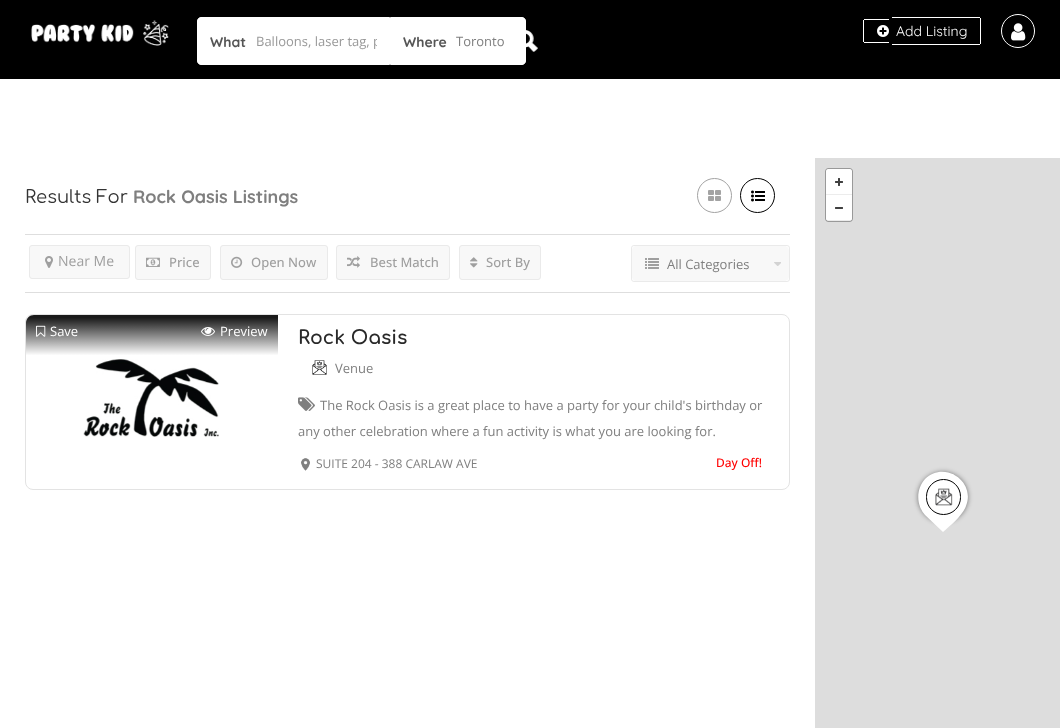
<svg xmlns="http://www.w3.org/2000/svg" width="1060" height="728">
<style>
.a{font:14px Quicksand;fill:#fff}
.b{font:bold 14px Quicksand;fill:#555}
.c{font:13px Open Sans;fill:#999}
.d{font:13px Open Sans;fill:#7f7f7f}
.e{font:18px Comfortaa;fill:#333}
.f{font:bold 18px Quicksand;fill:#7f7f7f}
.g{font:14px Open Sans;fill:#9f9f9f}
.h{font:500 13px Open Sans;fill:#9f9f9f}
.i{font:13px Open Sans;fill:#fff}
.j{font:bold 19px Comfortaa;fill:#292929}
.k{font:12px Open Sans;fill:#7f7f7f}
.l{font:500 12px Open Sans;fill:#f00}
</style>
<defs>
<linearGradient id="g1" gradientUnits="userSpaceOnUse" x1="152" y1="359" x2="152" y2="315"><stop offset="0.08" stop-color="#000" stop-opacity="0"/><stop offset="0.94" stop-color="#000" stop-opacity="0.9"/></linearGradient>
<clipPath id="clip1"><path d="M256 32h121v18H256z"/></clipPath>
</defs>
<rect width="100%" height="100%" fill="#fff"/>
<path fill="#000" d="M0 0h1060v79H0z"/>
<path fill="#fff" d="M864 19h25v1H864z"/>
<path fill="#fff" d="M864 42h25v1H864z"/>
<path fill="#fff" d="M863 20h1v22H863z"/>
<path fill="#fff" d="M892 17h88v1H892z"/>
<path fill="#fff" d="M980 18h1v26H980z"/>
<path fill="#fff" d="M892 44h88v1H892z"/>
<image href="1.png" x="877" y="25" width="12" height="12"/>
<circle fill="none" stroke="#fff" cx="1018" cy="31" r="16.5"/>
<image href="2.png" x="1011" y="23" width="15" height="18"/>
<image href="3.png" x="31" y="20" width="138" height="26"/>
<path fill="#fff" stroke="#fff" d="M201 17.5h188.5v47h-188.5c-2 0-3.5-1.5-3.5-3.5v-40c0-2 1.5-3.5 3.5-3.5z"/>
<path fill="#fff" stroke="#fff" d="M390.5 17.5h131.5c2 0 3.5 1.5 3.5 3.5v40c0 2-1.5 3.5-3.5 3.5h-131.5z"/>
<image href="4.png" x="526" y="30" width="12" height="22"/>
<circle fill="none" stroke="#a3a3a3" cx="714.5" cy="195.5" r="17"/>
<image href="5.png" x="708" y="190" width="13" height="11"/>
<circle fill="none" stroke="#000" cx="757.5" cy="195.5" r="17"/>
<image href="6.png" x="751" y="190" width="14" height="12"/>
<path fill="#dedede" d="M25 234h765v1H25z"/>
<path fill="#dedede" d="M25 292h765v1H25z"/>
<rect fill="#f8f8f8" stroke="#eaeaea" x="29.5" y="245.5" width="100" height="33" rx="2.5"/>
<image href="7.png" x="45" y="256" width="8" height="12"/>
<rect fill="#f8f8f8" stroke="#eaeaea" x="135.5" y="245.5" width="75" height="34" rx="2.5"/>
<image href="8.png" x="146" y="257" width="14" height="10"/>
<rect fill="#f8f8f8" stroke="#eaeaea" x="220.5" y="245.5" width="107" height="34" rx="2.5"/>
<image href="9.png" x="231" y="256" width="12" height="12"/>
<rect fill="#f8f8f8" stroke="#eaeaea" x="336.5" y="245.5" width="113" height="34" rx="2.5"/>
<image href="10.png" x="347" y="256" width="13" height="12"/>
<rect fill="#f8f8f8" stroke="#eaeaea" x="459.5" y="245.5" width="81" height="34" rx="2.5"/>
<image href="11.png" x="470" y="257" width="8" height="11"/>
<rect fill="none" stroke="#eaeaea" x="631.5" y="245.5" width="158" height="36" rx="2.5"/>
<path fill="#f8f8f8" d="M636 246h23v35h-23c-2 0-4-2-4-4v-27c0-2 2-4 4-4z"/>
<image href="12.png" x="645" y="258" width="14" height="11"/>
<path fill="#f8f8f8" d="M659 246h125c3 0 5 2 5 5v25c0 3-2 5-5 5h-125z"/>
<image href="13.png" x="774" y="262" width="7" height="4"/>
<rect fill="none" stroke="#e3e3e3" x="25.5" y="314.5" width="764" height="175" rx="7.5"/>
<path fill="url(#g1)" d="M34 315h244v44h-252v-36c0-4.5 3.5-8 8-8z"/>
<image href="14.png" x="36" y="325" width="10" height="12"/>
<image href="15.png" x="201" y="327" width="14" height="9"/>
<image href="16.png" x="83" y="359" width="136" height="78"/>
<image href="17.png" x="312" y="360" width="15" height="15"/>
<image href="18.png" x="298" y="397" width="17" height="14"/>
<image href="19.png" x="301" y="458" width="9" height="13"/>
<path fill="#ddd" d="M815 158h245v570H815z"/>
<rect fill="#fff" x="825" y="168" width="28" height="54" rx="3"/>
<rect fill="none" stroke="#00000066" x="825.5" y="168.5" width="27" height="53" rx="2.5"/>
<image href="20.png" x="835" y="178" width="8" height="8"/>
<path fill="#ececec" d="M826 194h26v1H826z"/>
<image href="21.png" x="835" y="207" width="8" height="2"/>
<path fill="#00000014" d="M826 220h26v1H826z"/>
<rect fill="#00000078" filter="blur(2.5px)" x="918" y="472" width="50" height="50" rx="25"/>
<path fill="#fff" d="M925 479c19-19 51 2 41 27c-3 9-16 20-23 26l-18-17c-9-10-9-26 0-36z"/>
<rect fill="none" stroke="#000" x="926.5" y="479.5" width="34" height="35" rx="17"/>
<image href="22.png" x="935" y="488" width="18" height="18"/>
<text class="a" x="896" y="36">Add Listing</text>
<text class="b" x="210" y="47">What</text>
<g clip-path="url(#clip1)">
<text class="c" x="256" y="46">Balloons, laser tag, p</text>
</g>
<text class="b" x="403" y="47">Where</text>
<text class="d" x="456" y="46">Toronto</text>
<text class="e" x="25" y="203">Results For</text>
<text class="f" x="133" y="203">Rock Oasis Listings</text>
<text class="g" x="58" y="266">Near Me</text>
<text class="h" x="169" y="267">Price</text>
<text class="h" x="251" y="267">Open Now</text>
<text class="h" x="370" y="267">Best Match</text>
<text class="h" x="486" y="267">Sort By</text>
<text class="d" x="667" y="269">All Categories</text>
<text class="i" x="50" y="336">Save</text>
<text class="i" x="220" y="336">Preview</text>
<text class="j" x="298" y="344">Rock Oasis</text>
<text class="d" x="335" y="373">Venue</text>
<text class="d" x="320" y="410">The Rock Oasis is a great place to have a party for your child's birthday or</text>
<text class="d" x="298" y="436">any other celebration where a fun activity is what you are looking for.</text>
<text class="k" x="316" y="468">SUITE 204 - 388 CARLAW AVE</text>
<text class="l" x="716" y="467">Day Off!</text>
</svg>
